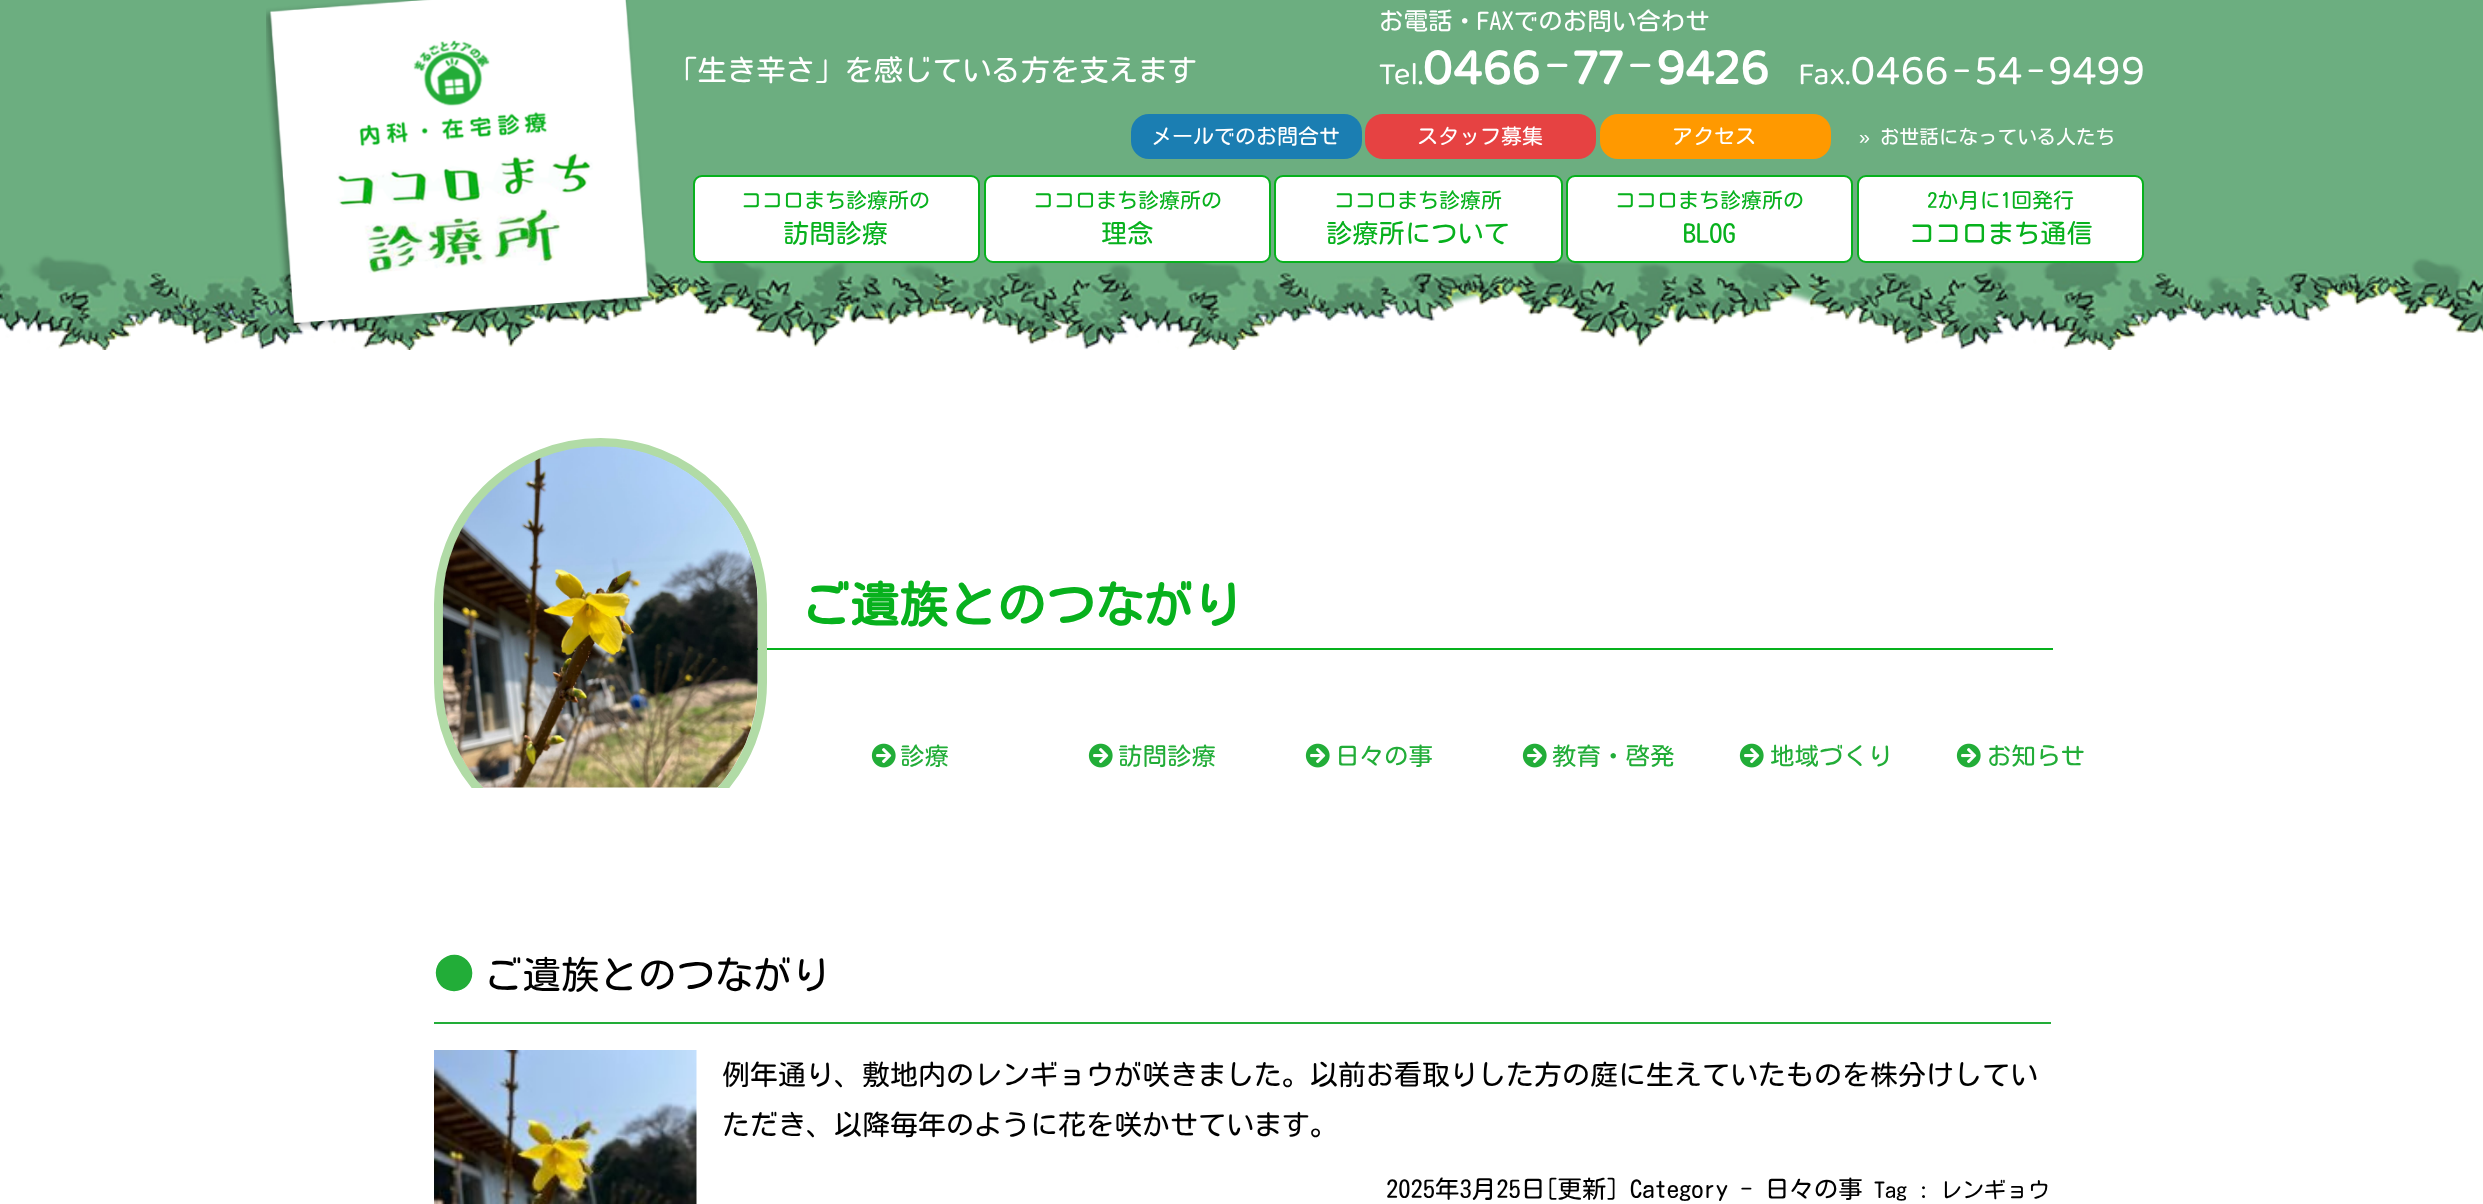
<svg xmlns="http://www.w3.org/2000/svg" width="2483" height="1204">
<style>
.a{font:29.4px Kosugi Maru;fill:#fff}
.b{font:24.5px Kosugi Maru;fill:#fff}
.c{font:32px 'Baloo 2';fill:#fff}
.d{font:bold 52.5px 'Baloo 2';fill:#fff}
.e{font:49px Kosugi Maru;fill:#fff}
.f{font:44px 'Baloo 2';fill:#fff}
.g{font:35px Kosugi Maru;fill:#fff}
.h{font:21px Kosugi Maru;fill:#fff}
.i{font:19.6px Liberation Sans;fill:#fff}
.j{font:19.6px Kosugi Maru;fill:#fff}
.k{font:21px Kosugi Maru;fill:#07b11d}
.l{font:26.25px Kosugi Maru;fill:#07b11d}
.m{font:bold 49px Kosugi Maru;fill:#07b11d}
.n{font:24.5px Kosugi Maru;fill:#22ad38}
.o{font:42px Kosugi Maru;fill:#22ad38}
.p{font:38.5px Kosugi Maru;fill:#000}
.q{font:28px Kosugi Maru;fill:#000}
.r{font:24.5px Kosugi Maru;fill:#000}
.s{font:22px Kosugi Maru;fill:#000}
</style>
<defs>
<clipPath id="clip1"><path d="M434 350h1619v438H434z"/></clipPath>
</defs>
<rect width="100%" height="100%" fill="#fff"/>
<image href="1.png" x="0" y="0" width="2483" height="350"/>
<image href="2.png" x="266" y="0" width="384" height="330"/>
<rect fill="#1b7eb2" x="1131" y="114" width="231" height="45" rx="18"/>
<rect fill="#e64242" x="1365" y="114" width="231" height="45" rx="18"/>
<rect fill="#f90" x="1600" y="114" width="231" height="45" rx="18"/>
<rect fill="#fff" stroke="#07b11d" stroke-width="2" x="694" y="176" width="285" height="86" rx="8"/>
<rect fill="#fff" stroke="#07b11d" stroke-width="2" x="985" y="176" width="285" height="86" rx="8"/>
<rect fill="#fff" stroke="#07b11d" stroke-width="2" x="1275" y="176" width="287" height="86" rx="8"/>
<rect fill="#fff" stroke="#07b11d" stroke-width="2" x="1567" y="176" width="285" height="86" rx="8"/>
<rect fill="#fff" stroke="#07b11d" stroke-width="2" x="1858" y="176" width="285" height="86" rx="8"/>
<path fill="#07b11d" d="M757 648h1296v2H757z"/>
<g clip-path="url(#clip1)">
<rect fill="none" stroke="#b1dba6" stroke-width="9" x="438.5" y="442.5" width="324" height="402" rx="162"/>
</g>
<image href="3.png" x="442" y="446" width="316" height="342"/>
<image href="4.png" x="871" y="743" width="25" height="25"/>
<image href="4.png" x="1088" y="743" width="25" height="25"/>
<image href="4.png" x="1305" y="743" width="25" height="25"/>
<image href="4.png" x="1522" y="743" width="25" height="25"/>
<image href="4.png" x="1739" y="743" width="25" height="25"/>
<image href="4.png" x="1956" y="743" width="25" height="25"/>
<path fill="#22ad38" d="M434 1022h1617v2H434z"/>
<image href="5.png" x="434" y="1050" width="263" height="154"/>
<text class="a" x="668" y="81">「生き辛さ」を感じている方を支えます</text>
<text class="b" x="1379" y="30">お電話・FAXでのお問い合わせ</text>
<text class="c" x="1379" y="84">Tel.</text>
<text class="d" x="1422" y="84">0466</text>
<text class="e" x="1545" y="84">-</text>
<text class="d" x="1573" y="84">77</text>
<text class="e" x="1628" y="84">-</text>
<text class="d" x="1656" y="84">9426</text>
<text class="c" x="1798" y="84">Fax.</text>
<text class="f" x="1850" y="84">0466</text>
<text class="g" x="1953" y="84">-</text>
<text class="f" x="1974" y="84">54</text>
<text class="g" x="2027" y="84">-</text>
<text class="f" x="2048" y="84">9499</text>
<text class="h" x="1151" y="144">メールでのお問合せ</text>
<text class="h" x="1417" y="144">スタッフ募集</text>
<text class="h" x="1672" y="144">アクセス</text>
<text class="i" x="1859" y="144">»</text>
<text class="j" x="1880" y="144">お世話になっている人たち</text>
<text class="k" x="741" y="208">ココロまち診療所の</text>
<text class="l" x="783" y="243">訪問診療</text>
<text class="k" x="1033" y="208">ココロまち診療所の</text>
<text class="l" x="1101" y="243">理念</text>
<text class="k" x="1334" y="208">ココロまち診療所</text>
<text class="l" x="1326" y="243">診療所について</text>
<text class="k" x="1615" y="208">ココロまち診療所の</text>
<text class="l" x="1683" y="243">BLOG</text>
<text class="k" x="1927" y="208">2か月に1回発行</text>
<text class="l" x="1909" y="243">ココロまち通信</text>
<text class="m" x="801" y="623">ご遺族とのつながり</text>
<text class="n" x="900" y="765">診療</text>
<text class="n" x="1118" y="765">訪問診療</text>
<text class="n" x="1335" y="765">日々の事</text>
<text class="n" x="1552" y="765">教育・啓発</text>
<text class="n" x="1770" y="765">地域づくり</text>
<text class="n" x="1987" y="765">お知らせ</text>
<text class="o" x="433" y="989">●</text>
<text class="p" x="484" y="989">ご遺族とのつながり</text>
<text class="q" x="722" y="1085">例年通り、敷地内のレンギョウが咲きました。以前お看取りした方の庭に生えていたものを株分けしてい</text>
<text class="q" x="722" y="1135">ただき、以降毎年のように花を咲かせています。</text>
<text class="r" x="1386" y="1198">2025年3月25日[更新]</text>
<text class="r" x="1630" y="1198">Category - 日々の事</text>
<text class="s" x="1874" y="1198">Tag : レンギョウ</text>
</svg>
